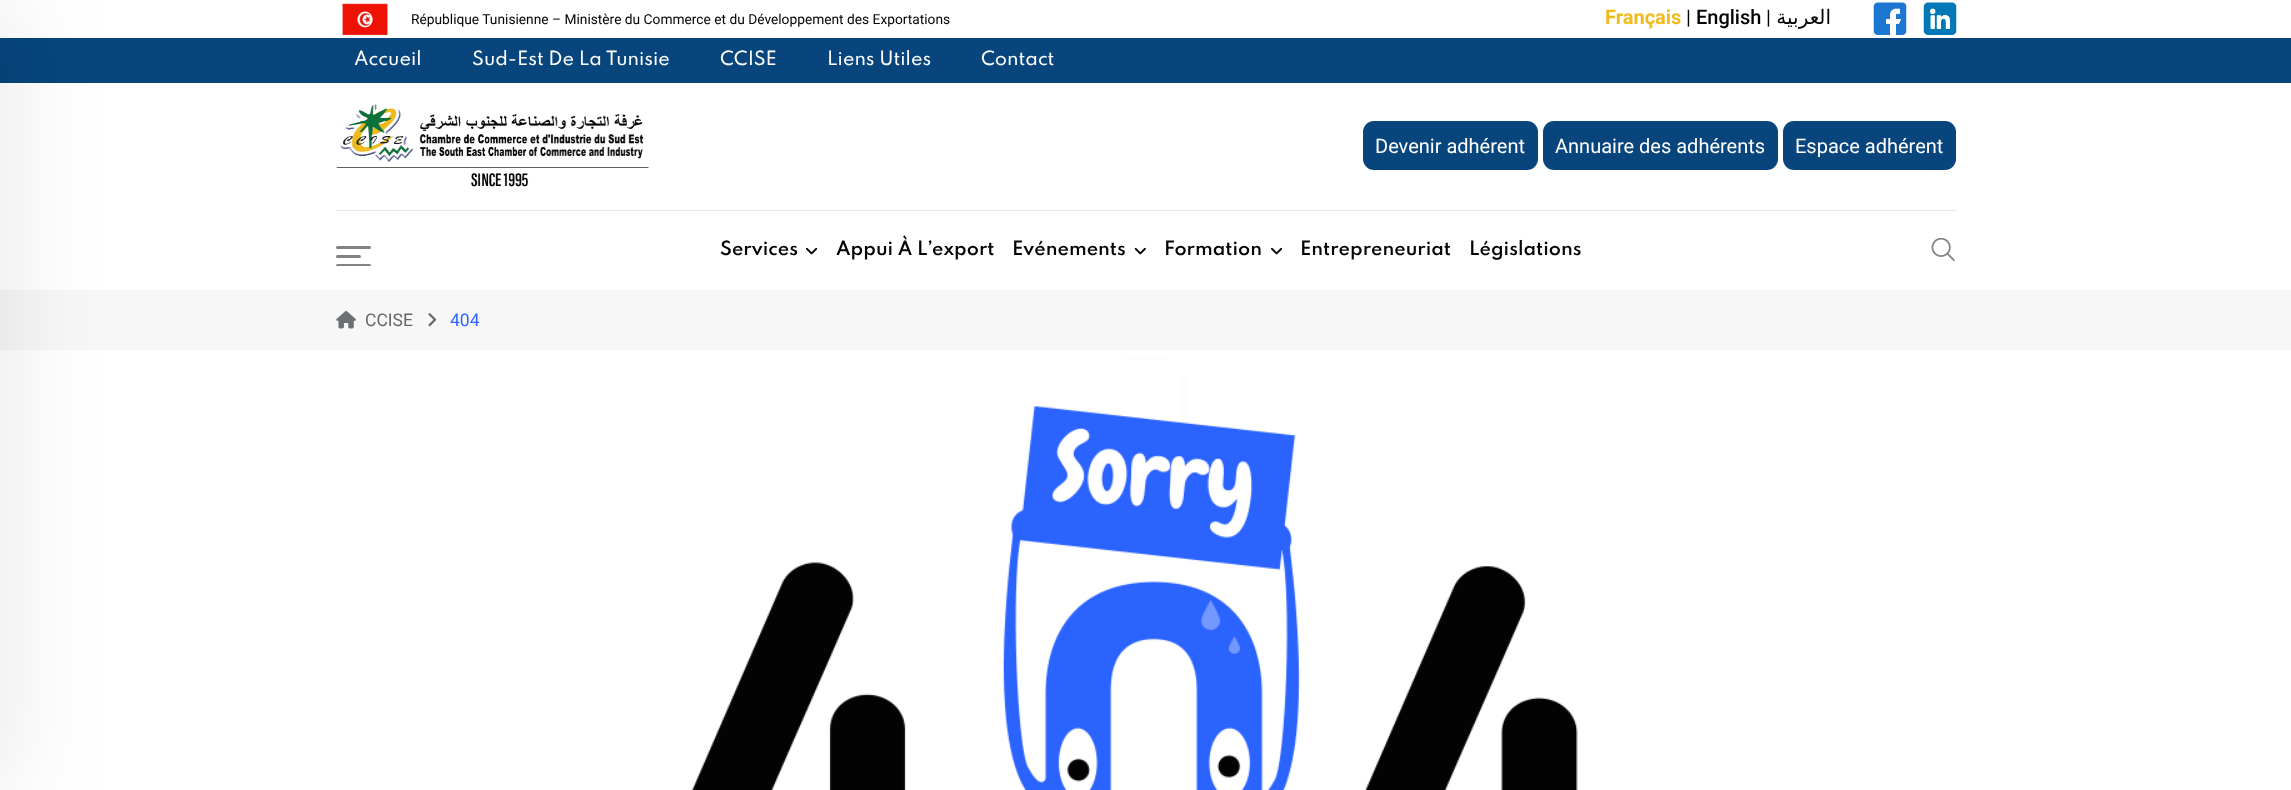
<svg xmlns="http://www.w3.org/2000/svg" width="2291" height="790">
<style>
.a{font:13.75px Roboto;fill:#030303}
.b{font:bold 20px Roboto;fill:#efbb1d}
.c{font:20px Roboto;fill:#030303}
.d{font:500 20px Roboto;fill:#030303}
.e{font:20px DejaVu Sans;direction:rtl;fill:#030303}
.f{font:500 17.5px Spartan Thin;fill:#fff}
.g{font:20px Roboto;fill:#fff}
.h{font:600 17.5px Spartan Thin;fill:#030303}
.i{font:17.5px Roboto;fill:#666}
.j{font:17.5px Roboto;fill:#2b64ff}
</style>
<defs>
<clipPath id="clip1"><path d="M336 246h35v20H336z"/></clipPath>
</defs>
<rect width="100%" height="100%" fill="#fff"/>
<image href="1.png" x="342" y="3" width="46" height="32"/>
<image href="2.png" x="1873" y="2" width="34" height="33"/>
<image href="3.png" x="1923" y="2" width="34" height="33"/>
<path fill="#07457c" d="M0 38h2291v45H0z"/>
<path fill="#e5e5e5" d="M336 210h1620v1H336z"/>
<image href="4.png" x="336" y="104" width="313" height="83"/>
<rect fill="#07457c" x="1363" y="121" width="175" height="49" rx="11"/>
<rect fill="#07457c" x="1543" y="121" width="235" height="49" rx="11"/>
<rect fill="#07457c" x="1783" y="121" width="173" height="49" rx="11"/>
<path fill="#f7f7f7" d="M0 290h2291v60H0z"/>
<path fill="#0303031a" filter="blur(56px)" d="M-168 0h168v790H-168z"/>
<rect fill="#828282" x="336" y="246" width="35" height="3" rx="1.5"/>
<rect fill="#828282" x="336" y="255" width="25" height="3" rx="1.5"/>
<g clip-path="url(#clip1)">
<rect fill="#828282" x="336" y="264" width="35" height="3" rx="1.5"/>
</g>
<image href="5.png" x="806" y="247" width="12" height="8"/>
<image href="6.png" x="1134" y="247" width="12" height="8"/>
<image href="5.png" x="1271" y="247" width="12" height="8"/>
<image href="7.png" x="1931" y="238" width="24" height="24"/>
<image href="8.png" x="336" y="311" width="20" height="18"/>
<image href="9.png" x="428" y="313" width="9" height="14"/>
<image href="10.png" x="692" y="406" width="886" height="384"/>
<path fill="#fcfdff" d="M1126 355h40v6H1126z"/>
<path fill="#fcfdff" d="M1181 375h7v40H1181z"/>
<text class="a" x="411" y="24">République Tunisienne – Ministère du Commerce et du Développement des Exportations</text>
<text class="b" x="1605" y="24">Français</text>
<text class="c" x="1686" y="24">|</text>
<text class="d" x="1696" y="24">English</text>
<text class="c" x="1766" y="24">|</text>
<text class="e" x="1831" y="24">العربية</text>
<text class="f" x="354" y="65">Accueil</text>
<text class="f" x="472" y="65">Sud-Est De La Tunisie</text>
<text class="f" x="720" y="65">CCISE</text>
<text class="f" x="827" y="65">Liens Utiles</text>
<text class="f" x="981" y="65">Contact</text>
<text class="g" x="1375" y="153">Devenir adhérent</text>
<text class="g" x="1555" y="153">Annuaire des adhérents</text>
<text class="g" x="1795" y="153">Espace adhérent</text>
<text class="h" x="720" y="255">Services</text>
<text class="h" x="836" y="255">Appui À L’export</text>
<text class="h" x="1012" y="255">Evénements</text>
<text class="h" x="1164" y="255">Formation</text>
<text class="h" x="1300" y="255">Entrepreneuriat</text>
<text class="h" x="1469" y="255">Législations</text>
<text class="i" x="365" y="326">CCISE</text>
<text class="j" x="450" y="326">404</text>
</svg>
